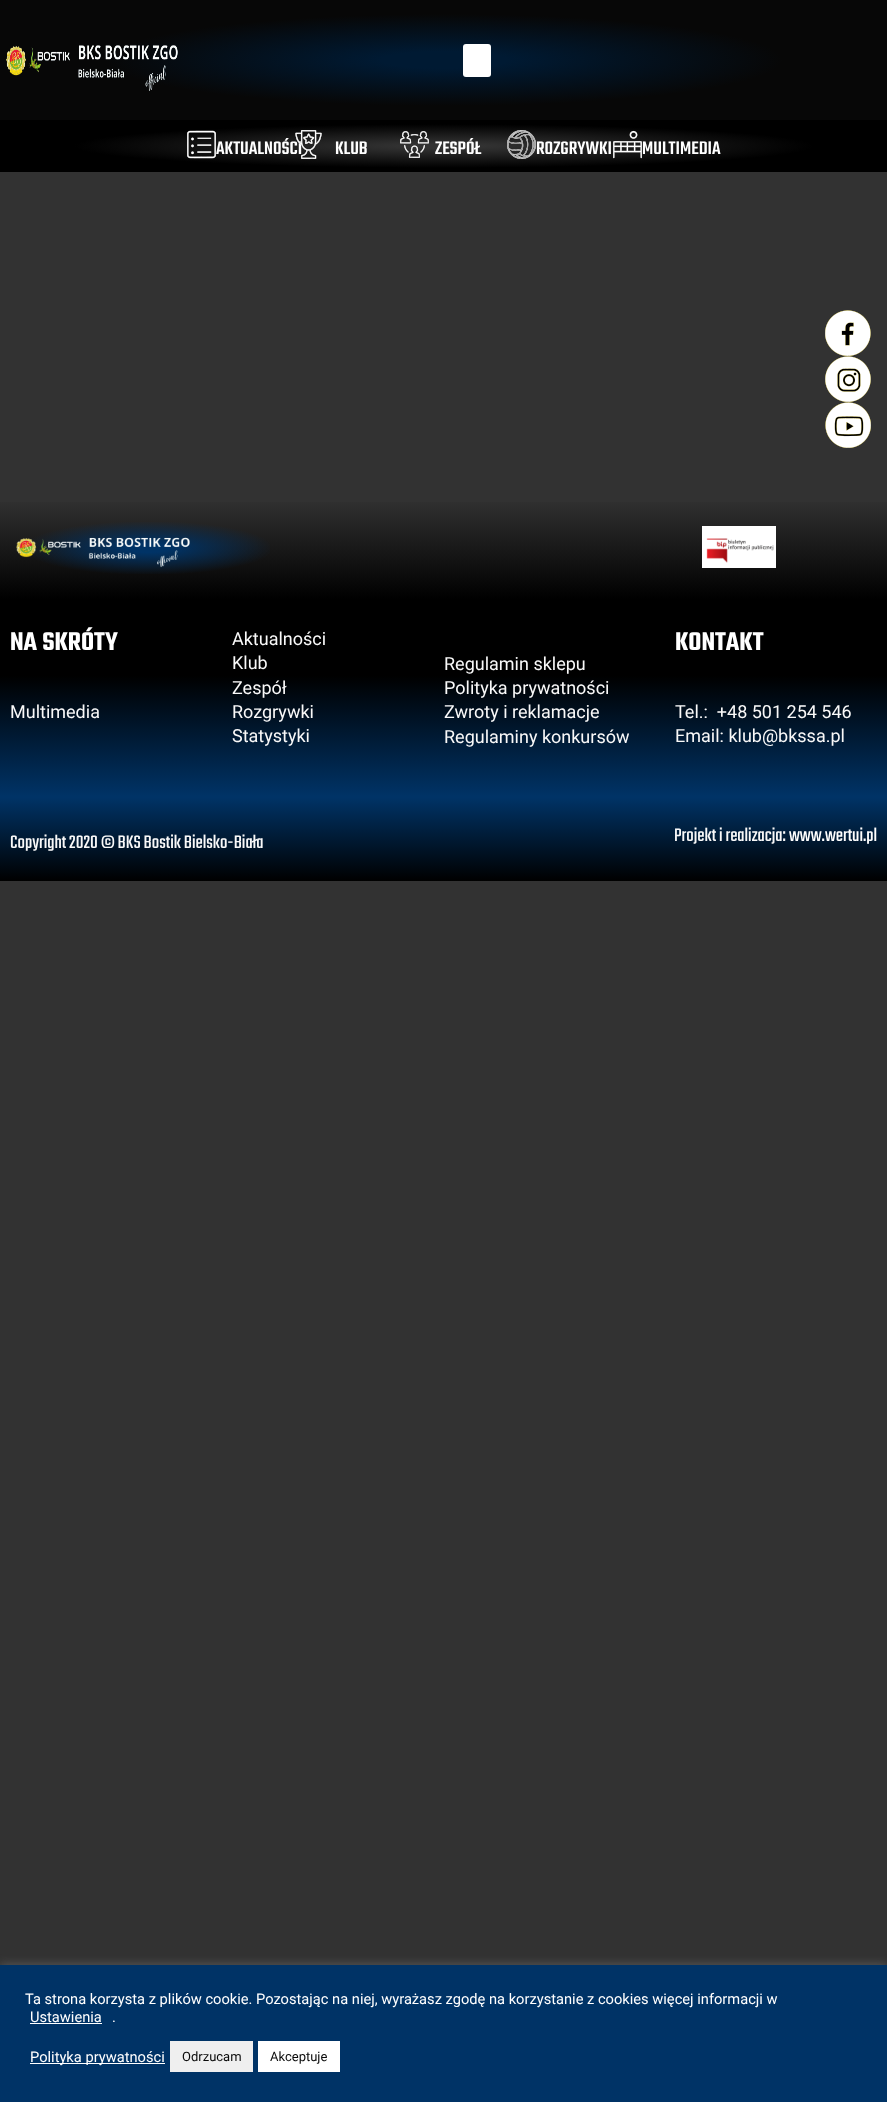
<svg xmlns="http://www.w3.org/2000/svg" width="887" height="2102">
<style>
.a{font:500 20px Teko;fill:#fff}
.b{font:600 28px Teko;fill:#fff}
.c{font:18px Roboto;fill:#f9f9f9}
.d{font:20px Teko;fill:#f9f9f9}
.e{font:20px Teko;fill:#fff}
.f{font:14.67px Roboto;fill:#fff}
.g{font:13px Roboto;fill:#0a0a0a}
</style>
<defs>
<radialGradient id="g1" gradientUnits="userSpaceOnUse" cx="0" cy="0" r="1" gradientTransform="matrix(627 0 0 85 444 60)"><stop offset="0.1" stop-color="#001a33"/><stop offset="0.54" stop-color="#070707"/></radialGradient>
<radialGradient id="g2" gradientUnits="userSpaceOnUse" cx="0" cy="0" r="1" gradientTransform="matrix(627 0 0 37 444 146)"><stop offset="0.06" stop-color="#323232"/><stop offset="0.59" stop-color="#000"/></radialGradient>
<linearGradient id="g3" gradientUnits="userSpaceOnUse" x1="444" y1="486" x2="444" y2="599"><stop offset="0.1" stop-color="#323232"/><stop offset="1" stop-color="#000"/></linearGradient>
<radialGradient id="g4" gradientUnits="userSpaceOnUse" cx="0" cy="0" r="1" gradientTransform="matrix(209 0 0 45 148 548)"><stop offset="0.1" stop-color="#036"/><stop offset="0.6" stop-color="#036" stop-opacity="0"/></radialGradient>
<linearGradient id="g5" gradientUnits="userSpaceOnUse" x1="444" y1="599" x2="444" y2="796"><stop offset="0.39" stop-color="#000"/><stop offset="1" stop-color="#036"/></linearGradient>
<linearGradient id="g6" gradientUnits="userSpaceOnUse" x1="444" y1="796" x2="444" y2="881"><stop offset="0.02" stop-color="#036"/><stop offset="1" stop-color="#000"/></linearGradient>
</defs>
<rect width="100%" height="100%" fill="#323232"/>
<path fill="url(#g1)" d="M0 0h887v120H0z"/>
<image href="1.png" x="6" y="45" width="172" height="46"/>
<rect fill="#fff" x="463" y="44" width="28" height="33" rx="3"/>
<path fill="url(#g2)" d="M0 120h887v52H0z"/>
<image href="2.png" x="187" y="130" width="29" height="29"/>
<image href="4.png" x="400" y="131" width="29" height="27"/>
<image href="5.png" x="507" y="130" width="29" height="29"/>
<image href="6.png" x="613" y="130" width="29" height="29"/>
<path fill="url(#g3)" d="M0 502h887v97H0z"/>
<image href="7.png" x="825" y="310" width="46" height="46"/>
<image href="8.png" x="825" y="356" width="46" height="46"/>
<image href="9.png" x="825" y="402" width="46" height="46"/>
<path fill="url(#g4)" d="M28 522h242v52H28z"/>
<image href="10.png" x="16" y="537" width="174" height="31"/>
<image href="11.png" x="702" y="526" width="74" height="42"/>
<path fill="url(#g5)" d="M0 599h887v197H0z"/>
<path fill="url(#g6)" d="M0 796h887v85H0z"/>
<path fill="#acabab4d" filter="blur(5px)" d="M0 1964h887v137H0z"/>
<path fill="#036" d="M0 1965h887v137H0z"/>
<path fill="#fff" d="M30 2023h72v1H30z"/>
<path fill="#fff" d="M30 2063h135v1H30z"/>
<path fill="#efefef" d="M170 2041h83v31H170z"/>
<path fill="#fff" d="M258 2041h82v31H258z"/>
<text class="a" x="216" y="154">AKTUALNOŚCI</text>
<image href="3.png" x="295" y="130" width="27" height="29"/>
<text class="a" x="335" y="154">KLUB</text>
<text class="a" x="435" y="154">ZESPÓŁ</text>
<text class="a" x="536" y="154">ROZGRYWKI</text>
<text class="a" x="642" y="154">MULTIMEDIA</text>
<text class="b" x="10" y="650">NA SKRÓTY</text>
<text class="c" x="10" y="718">Multimedia</text>
<text class="c" x="232" y="645">Aktualności</text>
<text class="c" x="232" y="669">Klub</text>
<text class="c" x="232" y="694">Zespół</text>
<text class="c" x="232" y="718">Rozgrywki</text>
<text class="c" x="232" y="742">Statystyki</text>
<text class="c" x="444" y="670">Regulamin sklepu</text>
<text class="c" x="444" y="694">Polityka prywatności</text>
<text class="c" x="444" y="718">Zwroty i reklamacje</text>
<text class="c" x="444" y="743">Regulaminy konkursów</text>
<text class="b" x="675" y="650">KONTAKT</text>
<text class="c" xml:space="preserve" x="675" y="718">Tel.:  +48 501 254 546</text>
<text class="c" x="675" y="742">Email: klub@bkssa.pl</text>
<text class="d" x="10" y="848">Copyright 2020 © BKS Bostik Bielsko-Biała</text>
<text class="d" x="674" y="841">Projekt i realizacja:</text>
<text class="e" x="789" y="841">www.wertui.pl</text>
<text class="f" x="25" y="2004">Ta strona korzysta z plików cookie. Pozostając na niej, wyrażasz zgodę na korzystanie z cookies więcej informacji w</text>
<text class="f" x="30" y="2022">Ustawienia</text>
<text class="f" x="112" y="2022">.</text>
<text class="f" x="30" y="2062">Polityka prywatności</text>
<text class="g" x="182" y="2061">Odrzucam</text>
<text class="g" x="270" y="2061">Akceptuje</text>
</svg>
